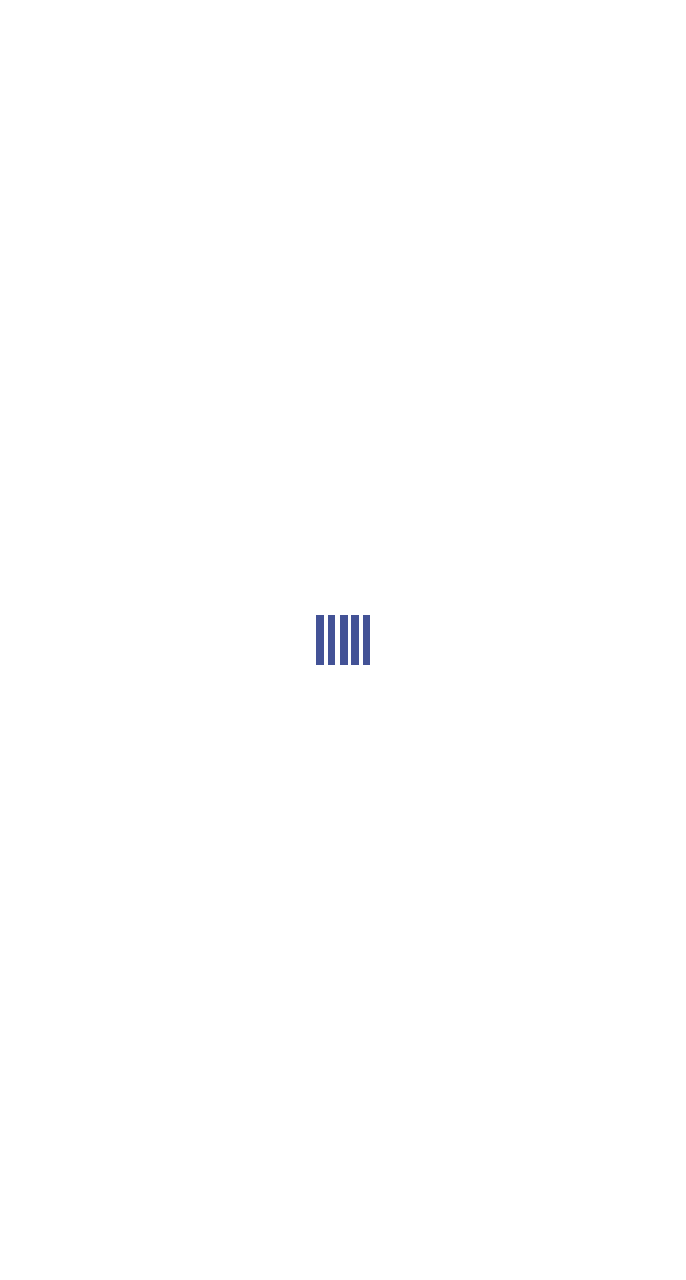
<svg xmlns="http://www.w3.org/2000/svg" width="686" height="1280">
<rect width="100%" height="100%" fill="#fff"/>
<path fill="#435296" d="M316 615h8v50H316z"/>
<path fill="#435296" d="M328 615h7v50H328z"/>
<path fill="#435296" d="M340 615h8v50H340z"/>
<path fill="#435296" d="M351 615h8v50H351z"/>
<path fill="#435296" d="M363 615h7v50H363z"/>
</svg>
